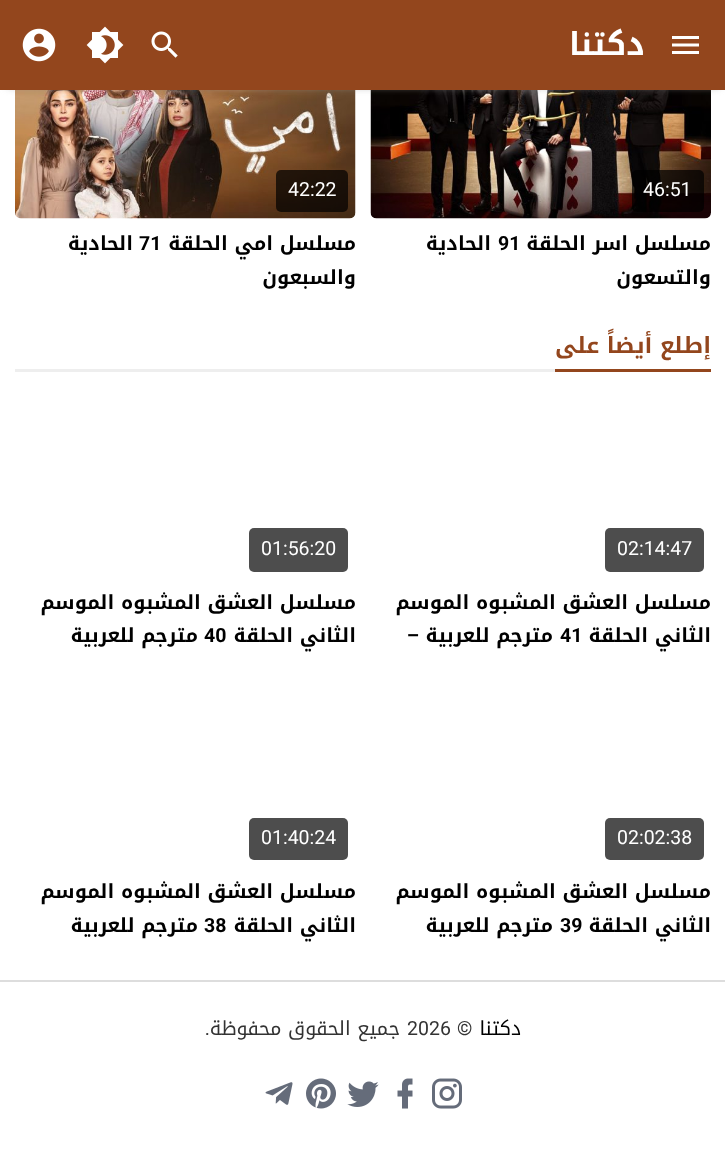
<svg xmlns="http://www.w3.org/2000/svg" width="725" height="1149">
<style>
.a{font:bold 31.5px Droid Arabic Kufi;direction:rtl;fill:#fff}
.b{font:19.5px Roboto;fill:#fff}
.c{font:bold 19.5px Droid Arabic Kufi;direction:rtl;fill:#000}
.d{font:bold 19.5px Roboto;fill:#000}
.e{font:bold 22.5px Droid Arabic Kufi;direction:rtl;fill:#93461d}
.f{font:bold 19.5px Roboto;direction:rtl;fill:#000}
.g{font:19.5px Droid Arabic Kufi;direction:rtl;fill:#000}
.h{font:19.5px Roboto;fill:#333}
.i{font:19.5px Droid Arabic Kufi;direction:rtl;fill:#333}
.j{font:19.5px Roboto;direction:rtl;fill:#333}
</style>
<rect width="100%" height="100%" fill="#fff"/>
<image href="5.png" x="370" y="90" width="341" height="129"/>
<image href="6.png" x="15" y="90" width="341" height="129"/>
<path fill="#999" filter="blur(4px)" d="M8 11h711v75H8z"/>
<path fill="#93461d" d="M0 0h725v90H0z"/>
<image href="1.png" x="672" y="36" width="27" height="18"/>
<image href="2.png" x="151" y="31" width="27" height="27"/>
<image href="3.png" x="86" y="26" width="38" height="38"/>
<image href="4.png" x="22" y="28" width="34" height="34"/>
<rect fill="#000000b3" x="632" y="170" width="72" height="42" rx="5"/>
<rect fill="#000000b3" x="276" y="170" width="72" height="42" rx="5"/>
<path fill="#eee" d="M15 369h540v3H15z"/>
<path fill="#93461d" d="M555 369h156v3H555z"/>
<rect fill="#4d4d4d" x="605" y="528" width="99" height="44" rx="5"/>
<rect fill="#4d4d4d" x="249" y="528" width="99" height="44" rx="5"/>
<rect fill="#4d4d4d" x="605" y="818" width="99" height="42" rx="5"/>
<rect fill="#4d4d4d" x="249" y="818" width="99" height="42" rx="5"/>
<path fill="#ddd" d="M0 980h725v2H0z"/>
<image href="7.png" x="432" y="1078" width="30" height="31"/>
<image href="8.png" x="397" y="1078" width="16" height="31"/>
<image href="9.png" x="347" y="1081" width="32" height="26"/>
<image href="10.png" x="306" y="1078" width="30" height="31"/>
<image href="11.png" x="265" y="1082" width="28" height="23"/>
<text class="a" x="645" y="55">دكتنا</text>
<text class="b" x="643" y="196">46:51</text>
<text class="c" x="711" y="250">مسلسل اسر الحلقة</text>
<text class="d" x="498" y="250">91</text>
<text class="c" x="491" y="250">الحادية</text>
<text class="c" x="711" y="284">والتسعون</text>
<text class="b" x="288" y="196">42:22</text>
<text class="c" x="356" y="250">مسلسل امي الحلقة</text>
<text class="d" x="139" y="250">71</text>
<text class="c" x="133" y="250">الحادية</text>
<text class="c" x="356" y="284">والسبعون</text>
<text class="e" x="711" y="353">إطلع أيضاً على</text>
<text class="b" x="617" y="555">02:14:47</text>
<text class="c" x="711" y="609">مسلسل العشق المشبوه الموسم</text>
<text class="c" x="711" y="642">الثاني الحلقة</text>
<text class="d" x="560" y="642">41</text>
<text class="c" x="553" y="642">مترجم للعربية</text>
<text class="f" x="419" y="642">–</text>
<text class="b" x="261" y="555">01:56:20</text>
<text class="c" x="356" y="609">مسلسل العشق المشبوه الموسم</text>
<text class="c" x="356" y="642">الثاني الحلقة</text>
<text class="d" x="204" y="642">40</text>
<text class="c" x="198" y="642">مترجم للعربية</text>
<text class="b" x="617" y="844">02:02:38</text>
<text class="c" x="711" y="898">مسلسل العشق المشبوه الموسم</text>
<text class="c" x="711" y="932">الثاني الحلقة</text>
<text class="d" x="560" y="932">39</text>
<text class="c" x="553" y="932">مترجم للعربية</text>
<text class="b" x="261" y="844">01:40:24</text>
<text class="c" x="356" y="898">مسلسل العشق المشبوه الموسم</text>
<text class="c" x="356" y="932">الثاني الحلقة</text>
<text class="d" x="204" y="932">38</text>
<text class="c" x="198" y="932">مترجم للعربية</text>
<text class="g" x="521" y="1035">دكتنا</text>
<text class="h" x="457" y="1035">©</text>
<text class="h" x="407" y="1035">2026</text>
<text class="i" x="400" y="1035">جميع الحقوق محفوظة</text>
<text class="j" x="210" y="1035">.</text>
</svg>
